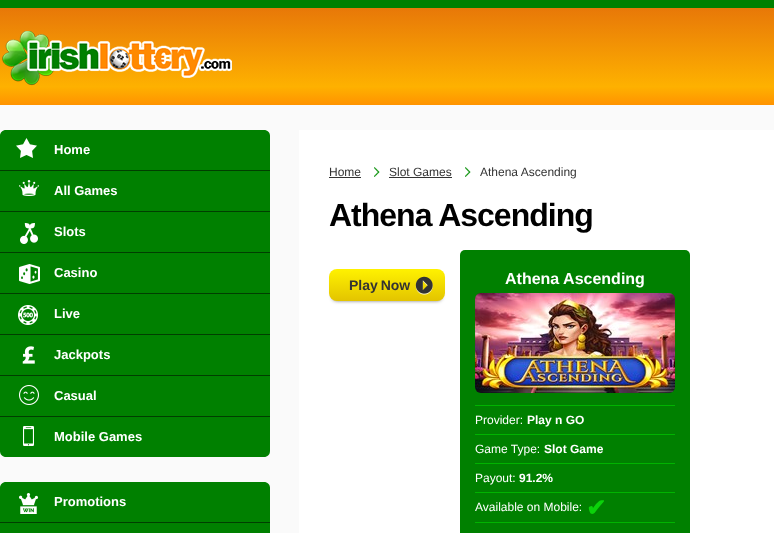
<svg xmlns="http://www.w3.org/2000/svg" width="774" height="533">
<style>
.a{font:bold 13px Liberation Sans;fill:#fff}
.b{font:12px Liberation Sans;fill:#333}
.c{font:bold 32px Liberation Sans;letter-spacing:-1px;fill:#000}
.d{font:bold 14px Liberation Sans;fill:#333}
.e{font:bold 16px Liberation Sans;fill:#fff}
.f{font:12px Liberation Sans;fill:#fff}
.g{font:bold 12px Liberation Sans;fill:#fff}
.h{font:bold 24px DejaVu Sans;fill:#0bd20a}
</style>
<defs>
<linearGradient id="g1" gradientUnits="userSpaceOnUse" x1="585" y1="8" x2="585" y2="105"><stop offset="0" stop-color="#e87808"/><stop offset="0.81" stop-color="#feb100"/><stop offset="1" stop-color="#ff9300"/></linearGradient>
</defs>
<rect width="100%" height="100%" fill="#fafafa"/>
<path fill="url(#g1)" d="M0 8h774v97H0z"/>
<path fill="#008000" d="M0 0h774v8H0z"/>
<image href="1.png" x="2" y="31" width="230" height="55"/>
<path fill="#003e00" d="M0 170h270v1H0z"/>
<image href="2.png" x="0" y="134" width="1" height="2"/>
<path fill="#008000" d="M6 130h258c3.5 0 6 2.5 6 6v34h-270v-34c0-3.5 2.5-6 6-6z"/>
<image href="3.png" x="16" y="138" width="21" height="20"/>
<path fill="#003e00" d="M0 211h270v1H0z"/>
<path fill="#008000" d="M0 171h270v40H0z"/>
<image href="4.png" x="19" y="180" width="20" height="16"/>
<path fill="#003e00" d="M0 252h270v1H0z"/>
<path fill="#008000" d="M0 212h270v40H0z"/>
<image href="5.png" x="20" y="223" width="18" height="21"/>
<path fill="#003e00" d="M0 293h270v1H0z"/>
<path fill="#008000" d="M0 253h270v40H0z"/>
<image href="6.png" x="19" y="264" width="21" height="20"/>
<path fill="#003e00" d="M0 334h270v1H0z"/>
<path fill="#008000" d="M0 294h270v40H0z"/>
<image href="7.png" x="18" y="305" width="20" height="20"/>
<path fill="#003e00" d="M0 375h270v1H0z"/>
<path fill="#008000" d="M0 335h270v40H0z"/>
<image href="8.png" x="22" y="346" width="13" height="18"/>
<path fill="#003e00" d="M0 416h270v1H0z"/>
<path fill="#008000" d="M0 376h270v40H0z"/>
<image href="9.png" x="19" y="385" width="20" height="20"/>
<path fill="#008000" d="M0 417h270v34c0 3.5-2.5 6-6 6h-258c-3.5 0-6-2.5-6-6z"/>
<image href="10.png" x="23" y="426" width="11" height="20"/>
<path fill="#003e00" d="M0 522h270v1H0z"/>
<image href="2.png" x="0" y="486" width="1" height="2"/>
<path fill="#008000" d="M6 482h258c3.5 0 6 2.5 6 6v34h-270v-34c0-3.5 2.5-6 6-6z"/>
<image href="11.png" x="19" y="493" width="19" height="21"/>
<path fill="#008000" d="M0 523h270v10H0z"/>
<path fill="#fff" d="M299 130h475v403H299z"/>
<path fill="#333" d="M329 177h32v1H329z"/>
<image href="12.png" x="374" y="167" width="6" height="10"/>
<path fill="#333" d="M389 177h63v1H389z"/>
<image href="12.png" x="465" y="167" width="6" height="10"/>
<rect fill="#333" filter="blur(2px)" x="333" y="276" width="108" height="24" rx="4"/>
<image href="13.png" x="329" y="269" width="116" height="32"/>
<rect fill="#008000" x="460" y="250" width="230" height="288" rx="5"/>
<image href="14.png" x="475" y="293" width="200" height="100"/>
<path fill="#00b300" d="M475 405h200v1H475z"/>
<path fill="#00b300" d="M475 434h200v1H475z"/>
<path fill="#00b300" d="M475 463h200v1H475z"/>
<path fill="#00b300" d="M475 492h200v1H475z"/>
<path fill="#00b300" d="M475 522h200v1H475z"/>
<text class="a" x="54" y="154">Home</text>
<text class="a" x="54" y="195">All Games</text>
<text class="a" x="54" y="236">Slots</text>
<text class="a" x="54" y="277">Casino</text>
<text class="a" x="54" y="318">Live</text>
<text class="a" x="54" y="359">Jackpots</text>
<text class="a" x="54" y="400">Casual</text>
<text class="a" x="54" y="441">Mobile Games</text>
<text class="a" x="54" y="506">Promotions</text>
<text class="b" x="329" y="176">Home</text>
<text class="b" x="389" y="176">Slot Games</text>
<text class="b" x="480" y="176">Athena Ascending</text>
<text class="c" x="329" y="226">Athena Ascending</text>
<text class="d" x="349" y="290" word-spacing="-1">Play Now</text>
<text class="e" x="505" y="284">Athena Ascending</text>
<text class="f" x="475" y="424">Provider:</text>
<text class="g" x="527" y="424">Play n GO</text>
<text class="f" x="475" y="453">Game Type:</text>
<text class="g" x="544" y="453">Slot Game</text>
<text class="f" x="475" y="482">Payout:</text>
<text class="g" x="519" y="482">91.2%</text>
<text class="f" x="475" y="511">Available on Mobile:</text>
<text class="h" x="586" y="516">✔︎</text>
</svg>
